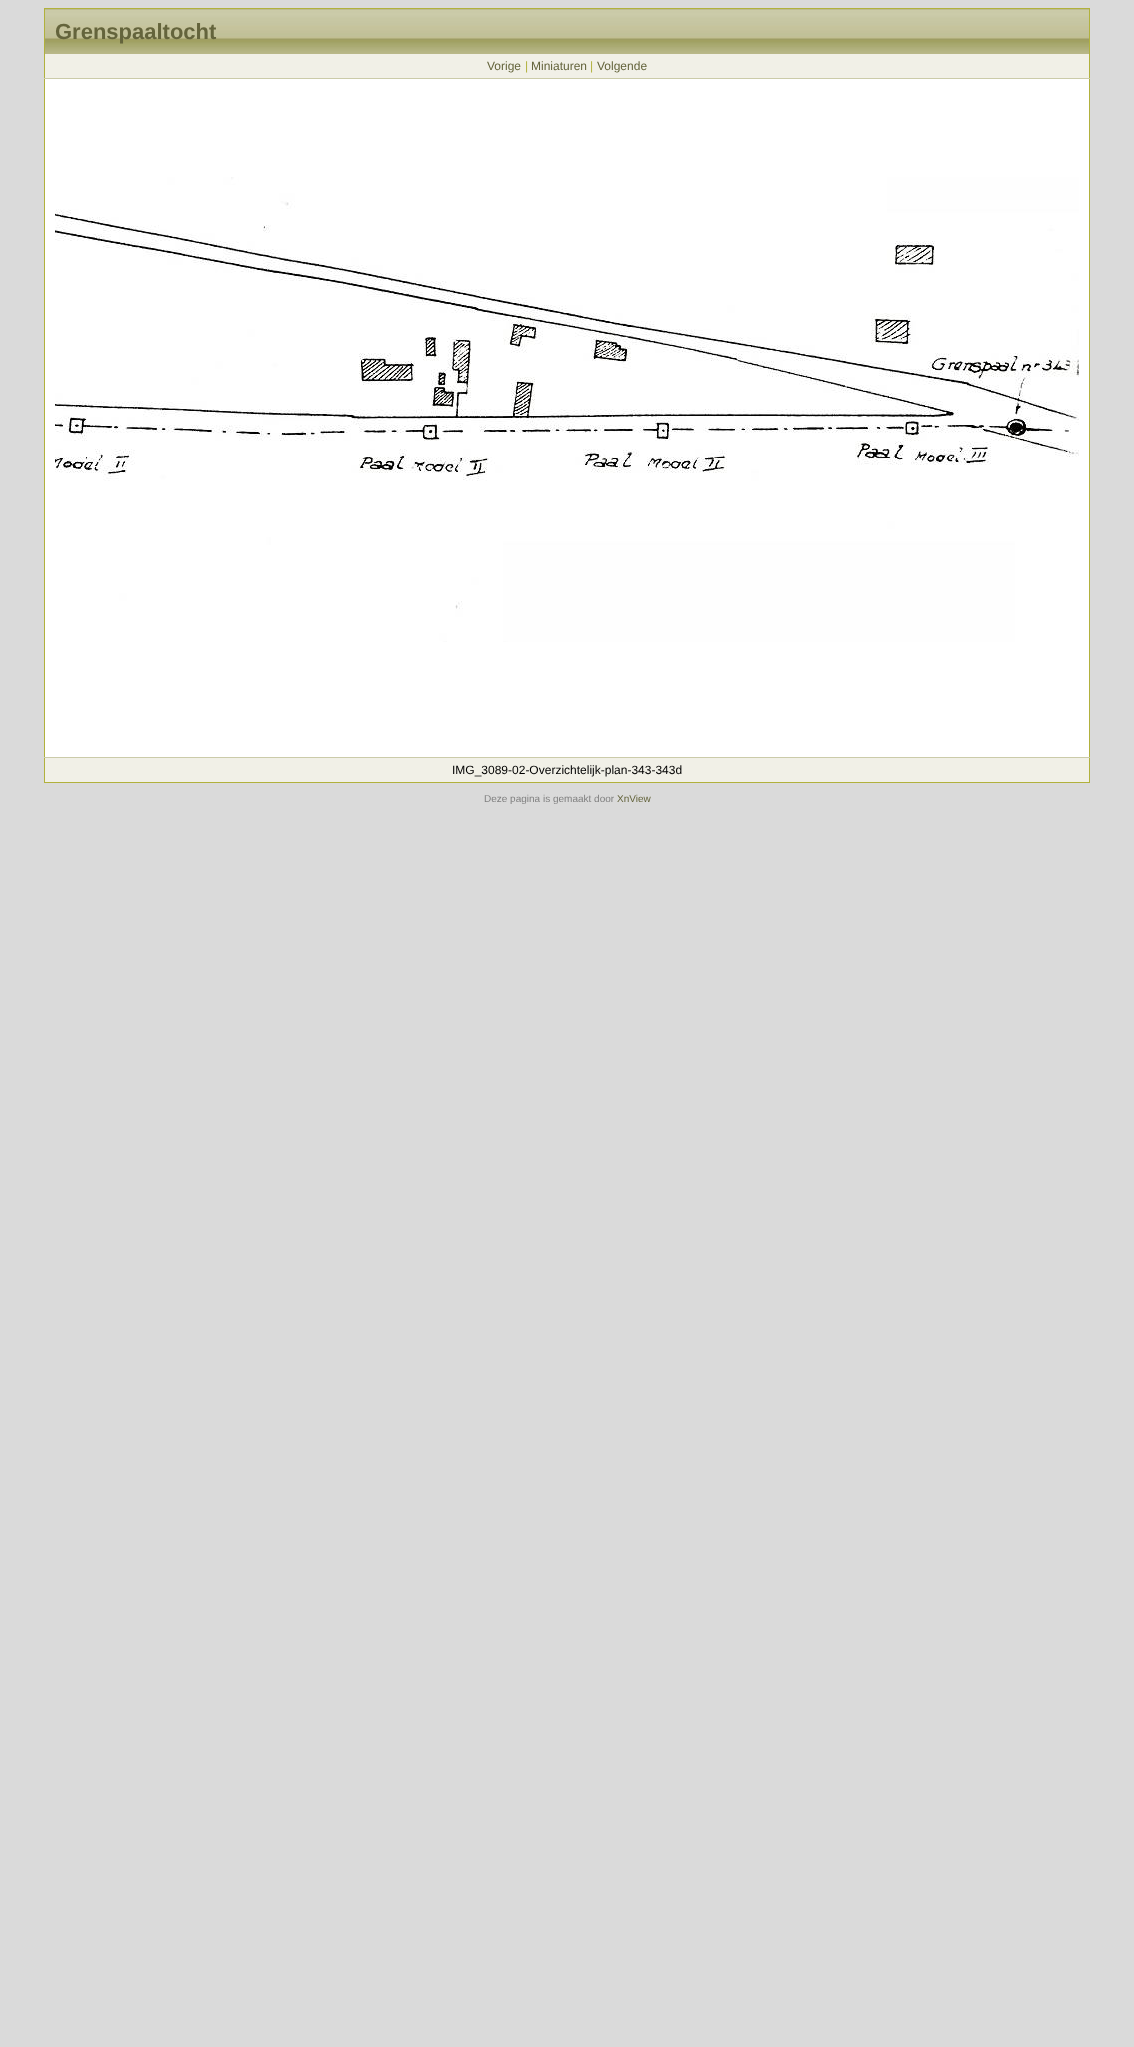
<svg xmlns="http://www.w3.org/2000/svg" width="1134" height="2047">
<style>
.a{font:bold 22px Liberation Sans;fill:#64643c}
.b{font:12px Liberation Sans;fill:#64643c}
.c{font:12px Liberation Sans;fill:#b1b13c}
.d{font:12px Liberation Sans;fill:#000}
.e{font:10px Liberation Sans;fill:#808080}
.f{font:10px Liberation Sans;fill:#64643c}
</style>
<rect width="100%" height="100%" fill="#dadada"/>
<path fill="#fff" d="M45 79h1044v678H45z"/>
<path fill="#b1b13c" d="M44 8h1046v1H44z"/>
<path fill="#b1b13c" d="M1089 8h1v775H1089z"/>
<path fill="#b1b13c" d="M44 782h1046v1H44z"/>
<path fill="#b1b13c" d="M44 8h1v775H44z"/>
<image href="1.png" x="45" y="9" width="1044" height="45"/>
<path fill="#f1f0e7" d="M45 54h1044v24H45z"/>
<path fill="#cbcba9" d="M44 78h1046v1H44z"/>
<image href="2.png" x="55" y="177" width="1024" height="465"/>
<path fill="#f1f0e7" d="M45 758h1044v24H45z"/>
<path fill="#cbcba9" d="M44 757h1046v1H44z"/>
<text class="a" x="55" y="39">Grenspaaltocht</text>
<text class="b" x="487" y="70">Vorige</text>
<text class="c" x="525" y="70">|</text>
<text class="b" x="531" y="70">Miniaturen</text>
<text class="c" x="590" y="70">|</text>
<text class="b" x="597" y="70">Volgende</text>
<text class="d" x="452" y="774">IMG_3089-02-Overzichtelijk-plan-343-343d</text>
<text class="e" x="484" y="802">Deze pagina is gemaakt door</text>
<text class="f" x="617" y="802">XnView</text>
</svg>
